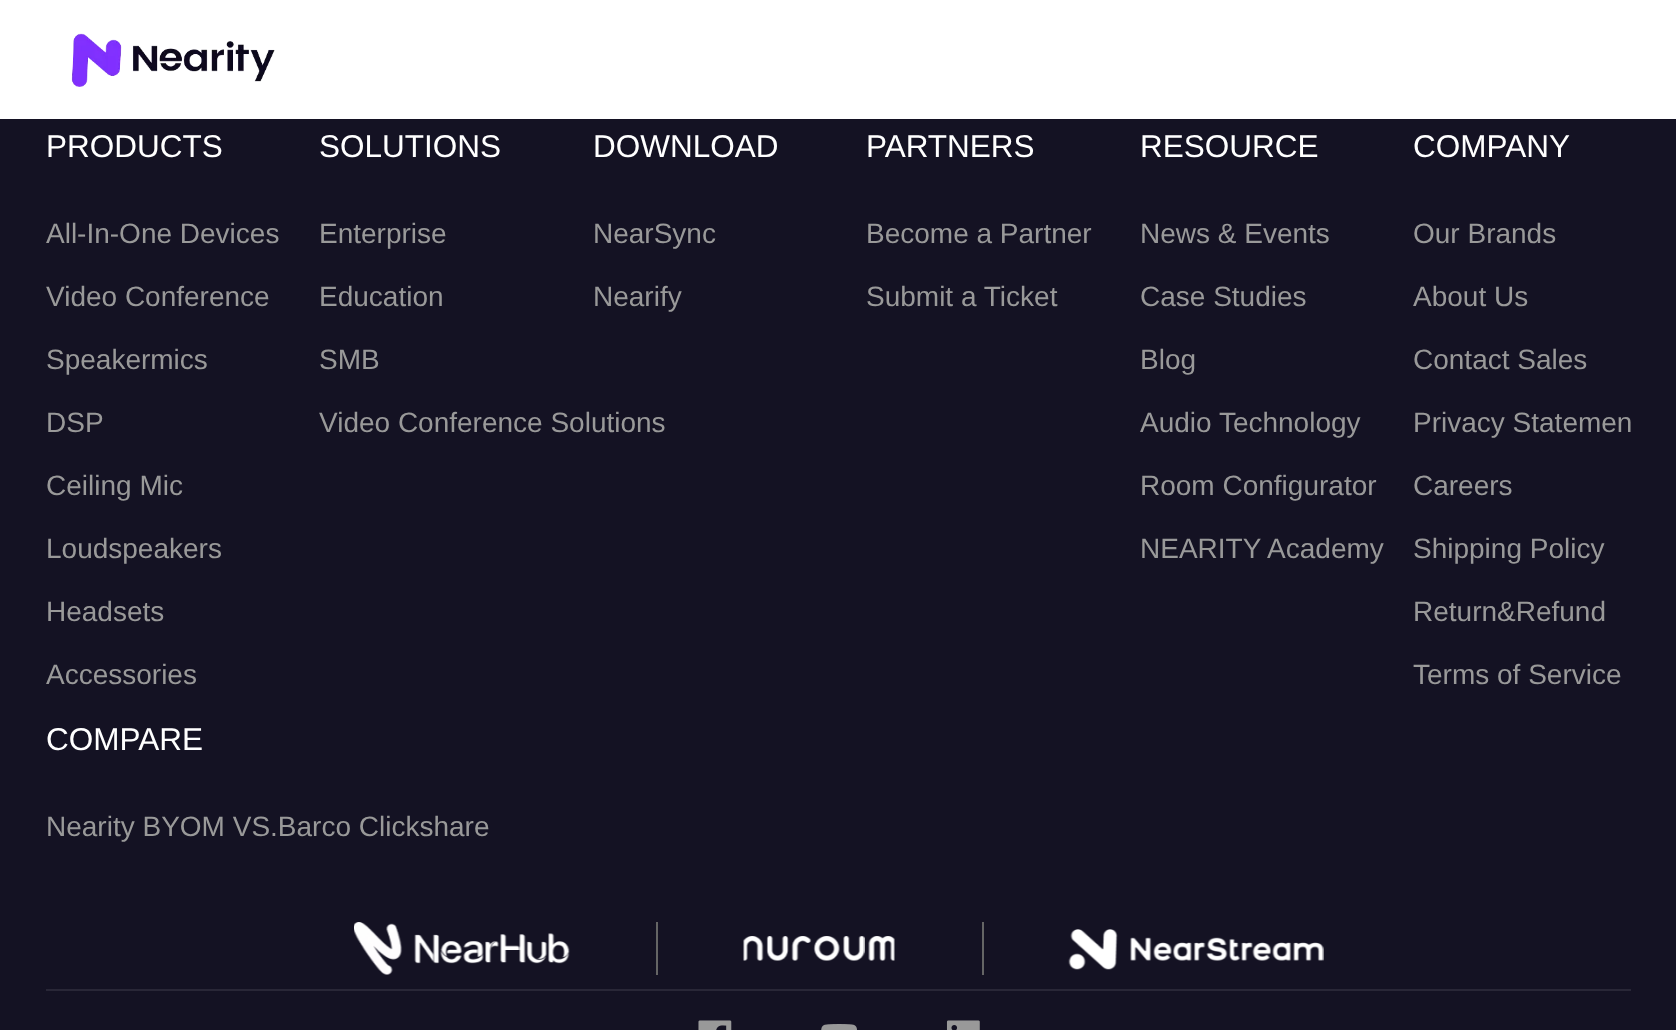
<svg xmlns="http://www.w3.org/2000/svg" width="1676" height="1030">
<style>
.a{font:31.5px Liberation Sans;fill:#fff}
.b{font:28px Liberation Sans;fill:#999}
</style>
<rect width="100%" height="100%" fill="#141223"/>
<path fill="#fff" d="M0 0h1676v119H0z"/>
<image href="1.png" x="71" y="33" width="204" height="54"/>
<image href="2.png" x="354" y="922" width="216" height="53"/>
<path fill="#656565" d="M656 922h2v53H656z"/>
<image href="3.png" x="743" y="936" width="152" height="25"/>
<path fill="#656565" d="M982 922h2v53H982z"/>
<image href="4.png" x="1068" y="929" width="256" height="41"/>
<path fill="#292737" d="M46 989h1585v2H46z"/>
<image href="5.png" x="698" y="1020" width="34" height="10"/>
<image href="6.png" x="821" y="1024" width="36" height="6"/>
<image href="7.png" x="946" y="1020" width="34" height="10"/>
<text class="a" x="46" y="157">PRODUCTS</text>
<text class="b" x="46" y="243">All-In-One Devices</text>
<text class="b" x="46" y="306">Video Conference</text>
<text class="b" x="46" y="369">Speakermics</text>
<text class="b" x="46" y="432">DSP</text>
<text class="b" x="46" y="495">Ceiling Mic</text>
<text class="b" x="46" y="558">Loudspeakers</text>
<text class="b" x="46" y="621">Headsets</text>
<text class="b" x="46" y="684">Accessories</text>
<text class="a" x="319" y="157">SOLUTIONS</text>
<text class="b" x="319" y="243">Enterprise</text>
<text class="b" x="319" y="306">Education</text>
<text class="b" x="319" y="369">SMB</text>
<text class="b" x="319" y="432">Video Conference Solutions</text>
<text class="a" x="593" y="157">DOWNLOAD</text>
<text class="b" x="593" y="243">NearSync</text>
<text class="b" x="593" y="306">Nearify</text>
<text class="a" x="866" y="157">PARTNERS</text>
<text class="b" x="866" y="243">Become a Partner</text>
<text class="b" x="866" y="306">Submit a Ticket</text>
<text class="a" x="1140" y="157">RESOURCE</text>
<text class="b" x="1140" y="243">News &amp; Events</text>
<text class="b" x="1140" y="306">Case Studies</text>
<text class="b" x="1140" y="369">Blog</text>
<text class="b" x="1140" y="432">Audio Technology</text>
<text class="b" x="1140" y="495">Room Configurator</text>
<text class="b" x="1140" y="558">NEARITY Academy</text>
<text class="a" x="1413" y="157">COMPANY</text>
<text class="b" x="1413" y="243">Our Brands</text>
<text class="b" x="1413" y="306">About Us</text>
<text class="b" x="1413" y="369">Contact Sales</text>
<text class="b" x="1413" y="432">Privacy Statemen</text>
<text class="b" x="1413" y="495">Careers</text>
<text class="b" x="1413" y="558">Shipping Policy</text>
<text class="b" x="1413" y="621">Return&amp;Refund</text>
<text class="b" x="1413" y="684">Terms of Service</text>
<text class="a" x="46" y="750">COMPARE</text>
<text class="b" x="46" y="836">Nearity BYOM VS.Barco Clickshare</text>
</svg>
